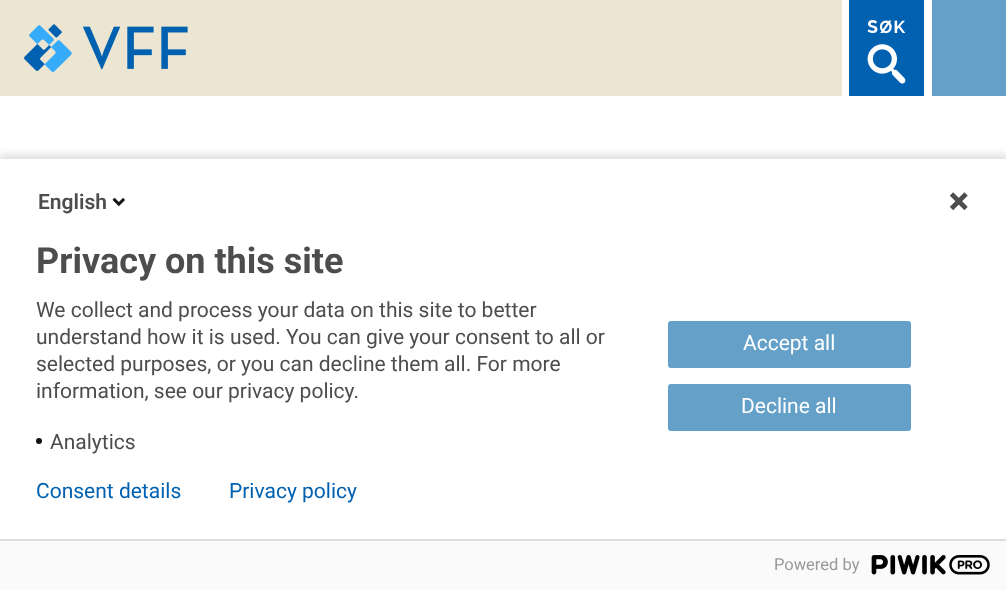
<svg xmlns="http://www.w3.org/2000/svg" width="1006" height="590">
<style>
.a{font:600 21px Roboto;fill:#4d4d4d}
.b{font:bold 36px Roboto;fill:#4d4d4d}
.c{font:21px Roboto;fill:#4d4d4d}
.d{font:21px Roboto;fill:#fff}
.e{font:21px Roboto;fill:#0061b1}
.f{font:16.5px Roboto;fill:#999}
</style>
<rect width="100%" height="100%" fill="#fff"/>
<path fill="#ebe5d1" d="M0 0h842v96H0z"/>
<image href="1.png" x="24" y="24" width="164" height="48"/>
<path fill="#0061b1" d="M849 0h75v96H849z"/>
<image href="2.png" x="867" y="20" width="39" height="64"/>
<path fill="#64a0c8" d="M932 0h74v96H932z"/>
<path fill="#00000024" filter="blur(4px)" d="M-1 155h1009v435H-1z"/>
<path fill="#fff" d="M0 159h1006v380H0z"/>
<image href="3.png" x="112" y="197" width="13" height="10"/>
<image href="4.png" x="949" y="192" width="19" height="19"/>
<circle fill="#131313" cx="39" cy="441" r="3"/>
<rect fill="#64a0c8" x="668" y="321" width="243" height="47" rx="3"/>
<rect fill="#64a0c8" x="668" y="384" width="243" height="47" rx="3"/>
<path fill="#fafafa" d="M0 541h1006v49H0z"/>
<path fill="#ddd" d="M0 539h1006v2H0z"/>
<image href="5.png" x="871" y="555" width="119" height="20"/>
<text class="a" x="38" y="209">English</text>
<text class="b" x="36" y="273">Privacy on this site</text>
<text class="c" x="36" y="317">We collect and process your data on this site to better</text>
<text class="c" x="36" y="344">understand how it is used. You can give your consent to all or</text>
<text class="c" x="36" y="371">selected purposes, or you can decline them all. For more</text>
<text class="c" x="36" y="398">information, see our privacy policy.</text>
<text class="c" x="50" y="449">Analytics</text>
<text class="d" x="743" y="350">Accept all</text>
<text class="d" x="741" y="413">Decline all</text>
<text class="e" x="36" y="498">Consent details</text>
<text class="e" x="229" y="498">Privacy policy</text>
<text class="f" x="774" y="570">Powered by</text>
</svg>
